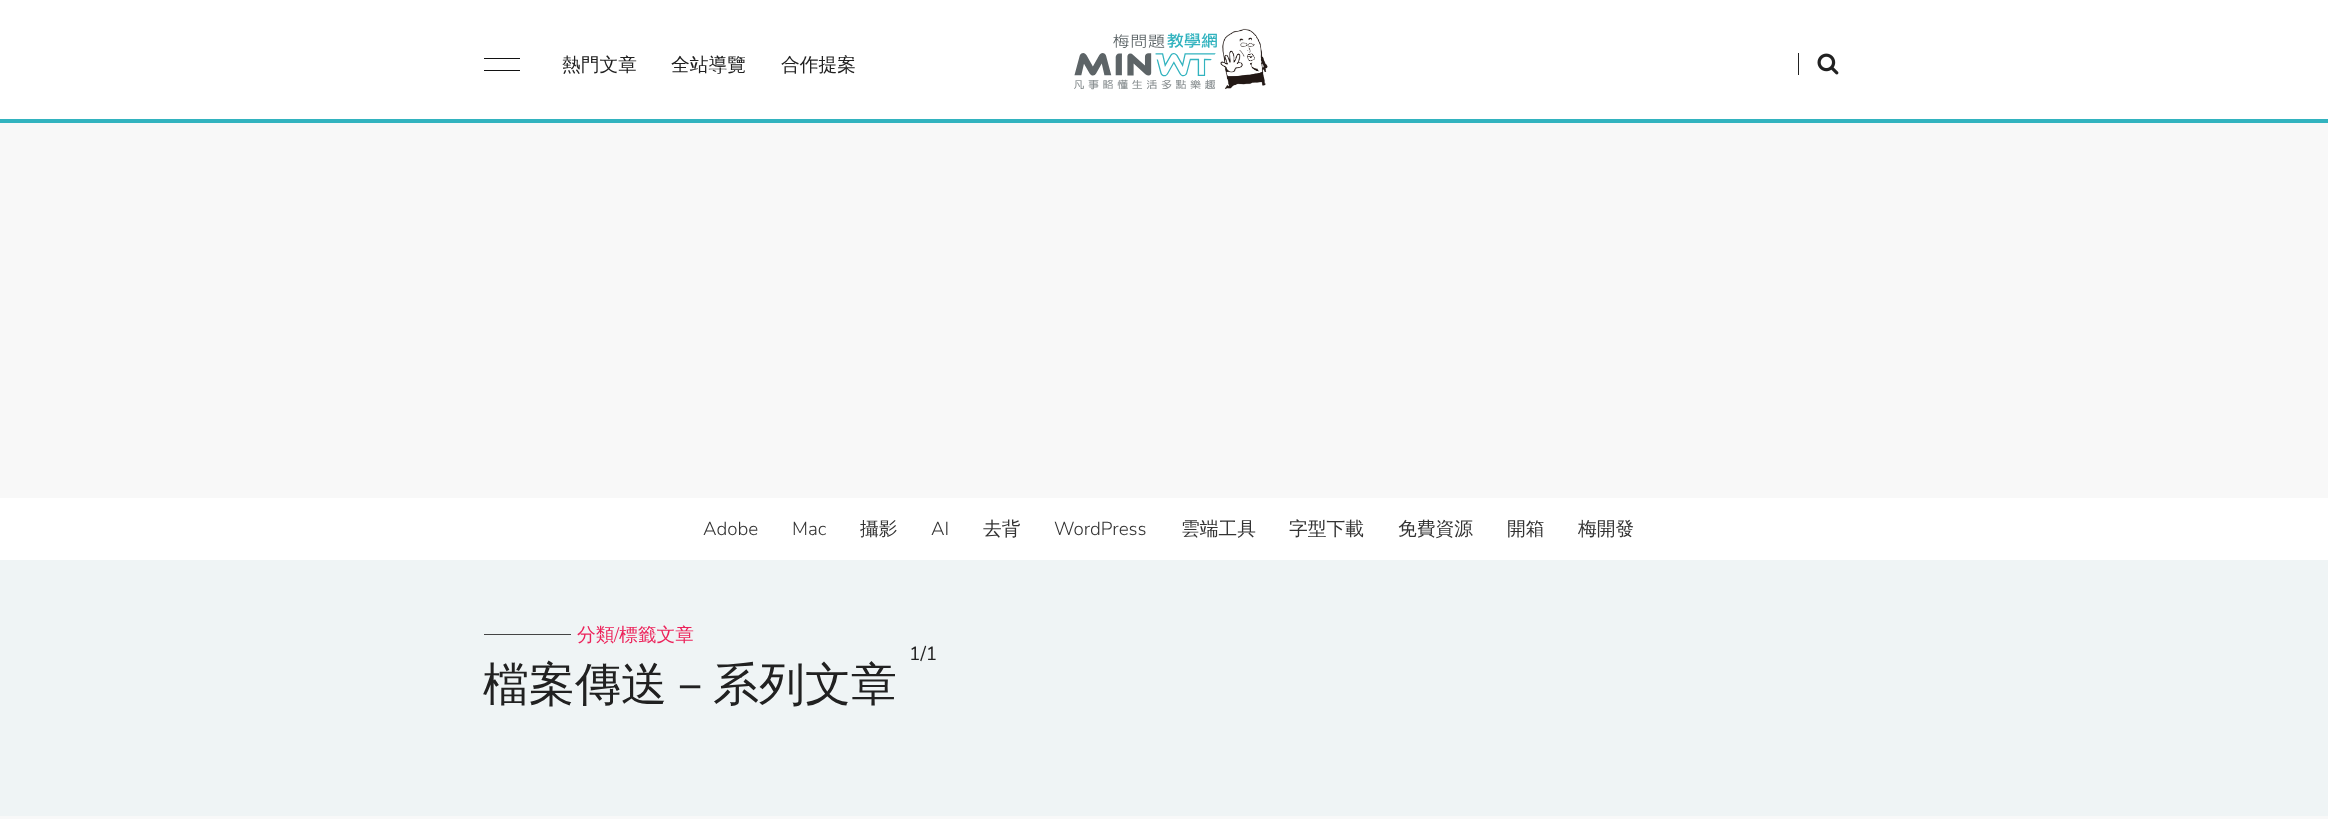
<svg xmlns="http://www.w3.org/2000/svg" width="2328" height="819">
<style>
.a{font:500 18.75px WenQuanYi Zen Hei;fill:#212121}
.b{font:300 18.75px Nunito Sans;fill:#333}
.c{font:500 18.75px WenQuanYi Zen Hei;fill:#333}
.d{font:500 18.75px WenQuanYi Zen Hei;fill:#ec235b}
.e{font:300 18.75px Nunito Sans;fill:#ec235b}
.f{font:19px Nunito Sans;fill:#212121}
.g{font:500 46px WenQuanYi Zen Hei;fill:#212121}
</style>
<rect width="100%" height="100%" fill="#f8f8f8"/>
<path fill="#fff" d="M0 0h2328v119H0z"/>
<path fill="#32b3bf" d="M0 119h2328v4H0z"/>
<path fill="#121212" d="M484 58h36v1H484z"/>
<path fill="#121212" d="M484 70h36v1H484z"/>
<image href="1.png" x="1074" y="28" width="194" height="62"/>
<path fill="#222" d="M1798 53h1v22H1798z"/>
<image href="2.png" x="1817" y="53" width="22" height="22"/>
<path fill="#fff" d="M0 498h2328v62H0z"/>
<path fill="#eff4f5" d="M0 560h2328v256H0z"/>
<path fill="#444" d="M484 634h87v1H484z"/>
<text class="a" x="562" y="71">熱門文章</text>
<text class="a" x="671" y="71">全站導覽</text>
<text class="a" x="781" y="71">合作提案</text>
<text class="b" x="703" y="535">Adobe</text>
<text class="b" x="792" y="535">Mac</text>
<text class="c" x="860" y="535">攝影</text>
<text class="b" x="931" y="535">AI</text>
<text class="c" x="983" y="535">去背</text>
<text class="b" x="1054" y="535">WordPress</text>
<text class="c" x="1181" y="535">雲端工具</text>
<text class="c" x="1289" y="535">字型下載</text>
<text class="c" x="1398" y="535">免費資源</text>
<text class="c" x="1507" y="535">開箱</text>
<text class="c" x="1578" y="535">梅開發</text>
<text class="d" x="577" y="641">分類</text>
<text class="e" x="614" y="641">/</text>
<text class="d" x="619" y="641">標籤文章</text>
<text class="f" x="909" y="660">1/1</text>
<text class="g" x="483" y="700">檔案傳送－系列文章</text>
</svg>
